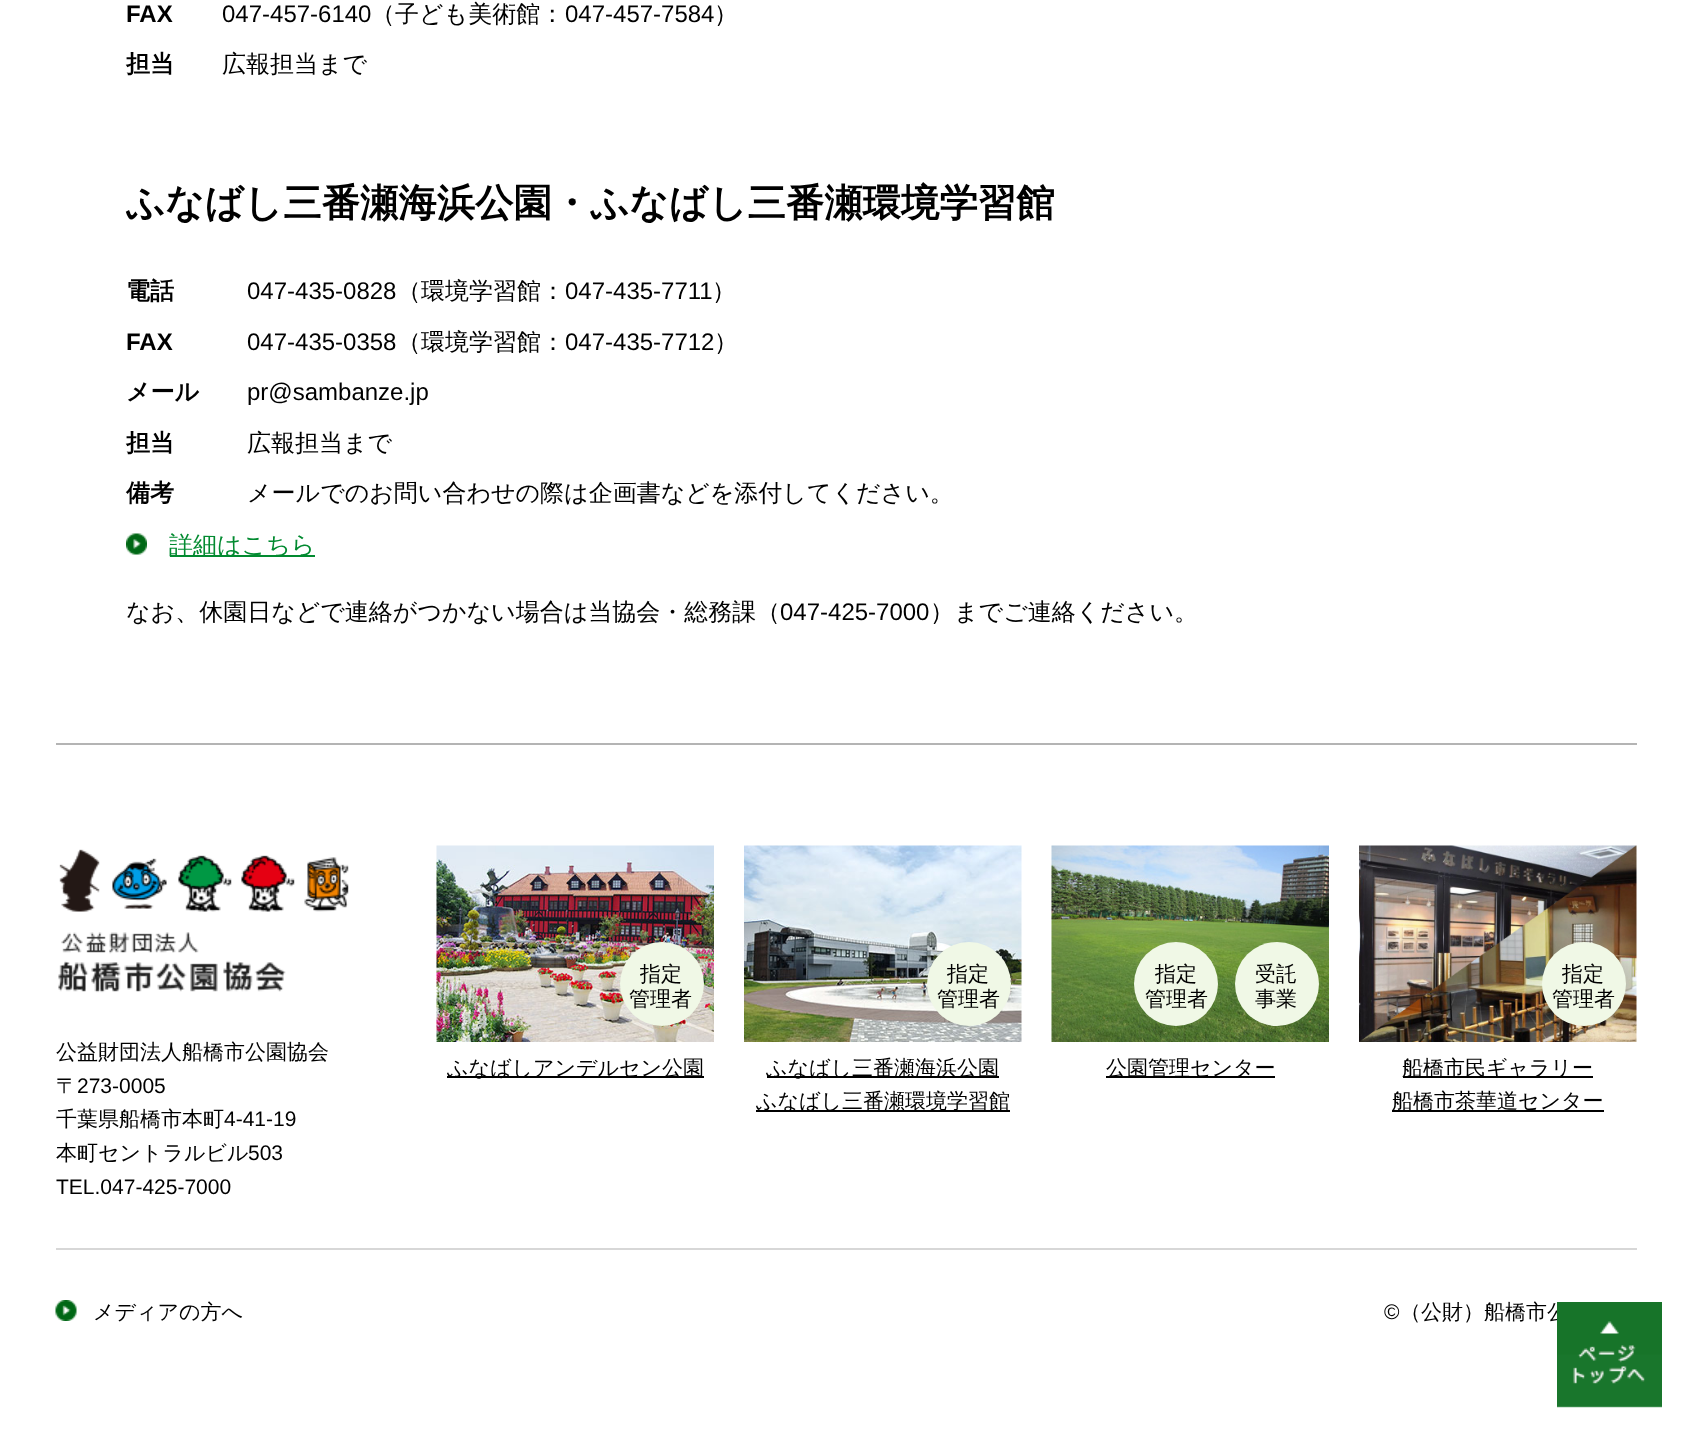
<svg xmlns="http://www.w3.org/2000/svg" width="1692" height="1448">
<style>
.a{font:bold 24px Liberation Sans;fill:#000}
.b{font:24px Liberation Sans;fill:#000}
.c{font:500 24px WenQuanYi Zen Hei;fill:#000}
.d{font:bold 24px WenQuanYi Zen Hei;fill:#000}
.e{font:bold 38.4px WenQuanYi Zen Hei;fill:#000}
.f{font:500 24px WenQuanYi Zen Hei;fill:#028a30}
.g{font:500 21px WenQuanYi Zen Hei;fill:#000}
.h{font:21px Liberation Sans;fill:#000}
</style>
<rect width="100%" height="100%" fill="#fff"/>
<image href="1.png" x="126" y="533" width="21" height="22"/>
<path fill="#028a30" d="M170 555h145v2H170z"/>
<path fill="#b4b4b4" d="M56 743h1581v2H56z"/>
<image href="2.png" x="58" y="849" width="291" height="144"/>
<image href="3.png" x="436" y="845" width="278" height="197"/>
<circle fill="#f0f8e6" cx="662" cy="984" r="42"/>
<path fill="#000" d="M447 1076h257v2H447z"/>
<image href="4.png" x="744" y="845" width="278" height="197"/>
<circle fill="#f0f8e6" cx="969" cy="984" r="42"/>
<path fill="#000" d="M767 1076h232v2H767z"/>
<path fill="#000" d="M756 1110h254v2H756z"/>
<image href="5.png" x="1051" y="845" width="278" height="197"/>
<circle fill="#f0f8e6" cx="1176" cy="984" r="42"/>
<circle fill="#f0f8e6" cx="1277" cy="984" r="42"/>
<path fill="#000" d="M1106 1076h169v2H1106z"/>
<image href="6.png" x="1359" y="845" width="278" height="197"/>
<circle fill="#f0f8e6" cx="1584" cy="984" r="42"/>
<path fill="#000" d="M1403 1076h190v2H1403z"/>
<path fill="#000" d="M1392 1110h212v2H1392z"/>
<path fill="#d7d7d7" d="M56 1248h1581v2H56z"/>
<image href="7.png" x="55" y="1300" width="22" height="21"/>
<text class="a" x="126" y="22">FAX</text>
<text class="b" x="222" y="22">047-457-6140</text>
<text class="c" x="371" y="22">（子ども美術館：</text>
<text class="b" x="565" y="22">047-457-7584</text>
<text class="c" x="714" y="22">）</text>
<text class="d" x="126" y="72">担当</text>
<text class="c" x="222" y="72">広報担当まで</text>
<text class="e" x="126" y="216">ふなばし三番瀬海浜公園・ふなばし三番瀬環境学習館</text>
<text class="d" x="126" y="299">電話</text>
<text class="b" x="247" y="299">047-435-0828</text>
<text class="c" x="397" y="299">（環境学習館：</text>
<text class="b" x="565" y="299">047-435-7711</text>
<text class="c" x="712" y="299">）</text>
<text class="a" x="126" y="350">FAX</text>
<text class="b" x="247" y="350">047-435-0358</text>
<text class="c" x="397" y="350">（環境学習館：</text>
<text class="b" x="565" y="350">047-435-7712</text>
<text class="c" x="714" y="350">）</text>
<text class="d" x="126" y="400">メール</text>
<text class="b" x="247" y="400">pr@sambanze.jp</text>
<text class="d" x="126" y="451">担当</text>
<text class="c" x="247" y="451">広報担当まで</text>
<text class="d" x="126" y="501">備考</text>
<text class="c" x="247" y="501">メールでのお問い合わせの際は企画書などを添付してください。</text>
<text class="f" x="169" y="553">詳細はこちら</text>
<text class="c" x="126" y="620">なお、休園日などで連絡がつかない場合は当協会・総務課（</text>
<text class="b" x="780" y="620">047-425-7000</text>
<text class="c" x="930" y="620">）までご連絡ください。</text>
<text class="g" x="56" y="1059">公益財団法人船橋市公園協会</text>
<text class="g" x="56" y="1093">〒</text>
<text class="h" x="77" y="1093">273-0005</text>
<text class="g" x="56" y="1126">千葉県船橋市本町</text>
<text class="h" x="224" y="1126">4-41-19</text>
<text class="g" x="56" y="1160">本町セントラルビル</text>
<text class="h" x="248" y="1160">503</text>
<text class="h" x="56" y="1194">TEL.047-425-7000</text>
<text class="g" x="640" y="981">指定</text>
<text class="g" x="629" y="1006">管理者</text>
<text class="g" x="447" y="1075">ふなばしアンデルセン公園</text>
<text class="g" x="947" y="981">指定</text>
<text class="g" x="937" y="1006">管理者</text>
<text class="g" x="766" y="1075">ふなばし三番瀬海浜公園</text>
<text class="g" x="756" y="1108">ふなばし三番瀬環境学習館</text>
<text class="g" x="1155" y="981">指定</text>
<text class="g" x="1145" y="1006">管理者</text>
<text class="g" x="1255" y="981">受託</text>
<text class="g" x="1255" y="1006">事業</text>
<text class="g" x="1106" y="1075">公園管理センター</text>
<text class="g" x="1562" y="981">指定</text>
<text class="g" x="1552" y="1006">管理者</text>
<text class="g" x="1402" y="1075">船橋市民ギャラリー</text>
<text class="g" x="1392" y="1108">船橋市茶華道センター</text>
<text class="g" x="93" y="1319">メディアの方へ</text>
<text class="h" x="1384" y="1319">©</text>
<text class="g" x="1400" y="1319">（公財）船橋市公</text>
<image href="8.png" x="1557" y="1302" width="105" height="106"/>
</svg>
